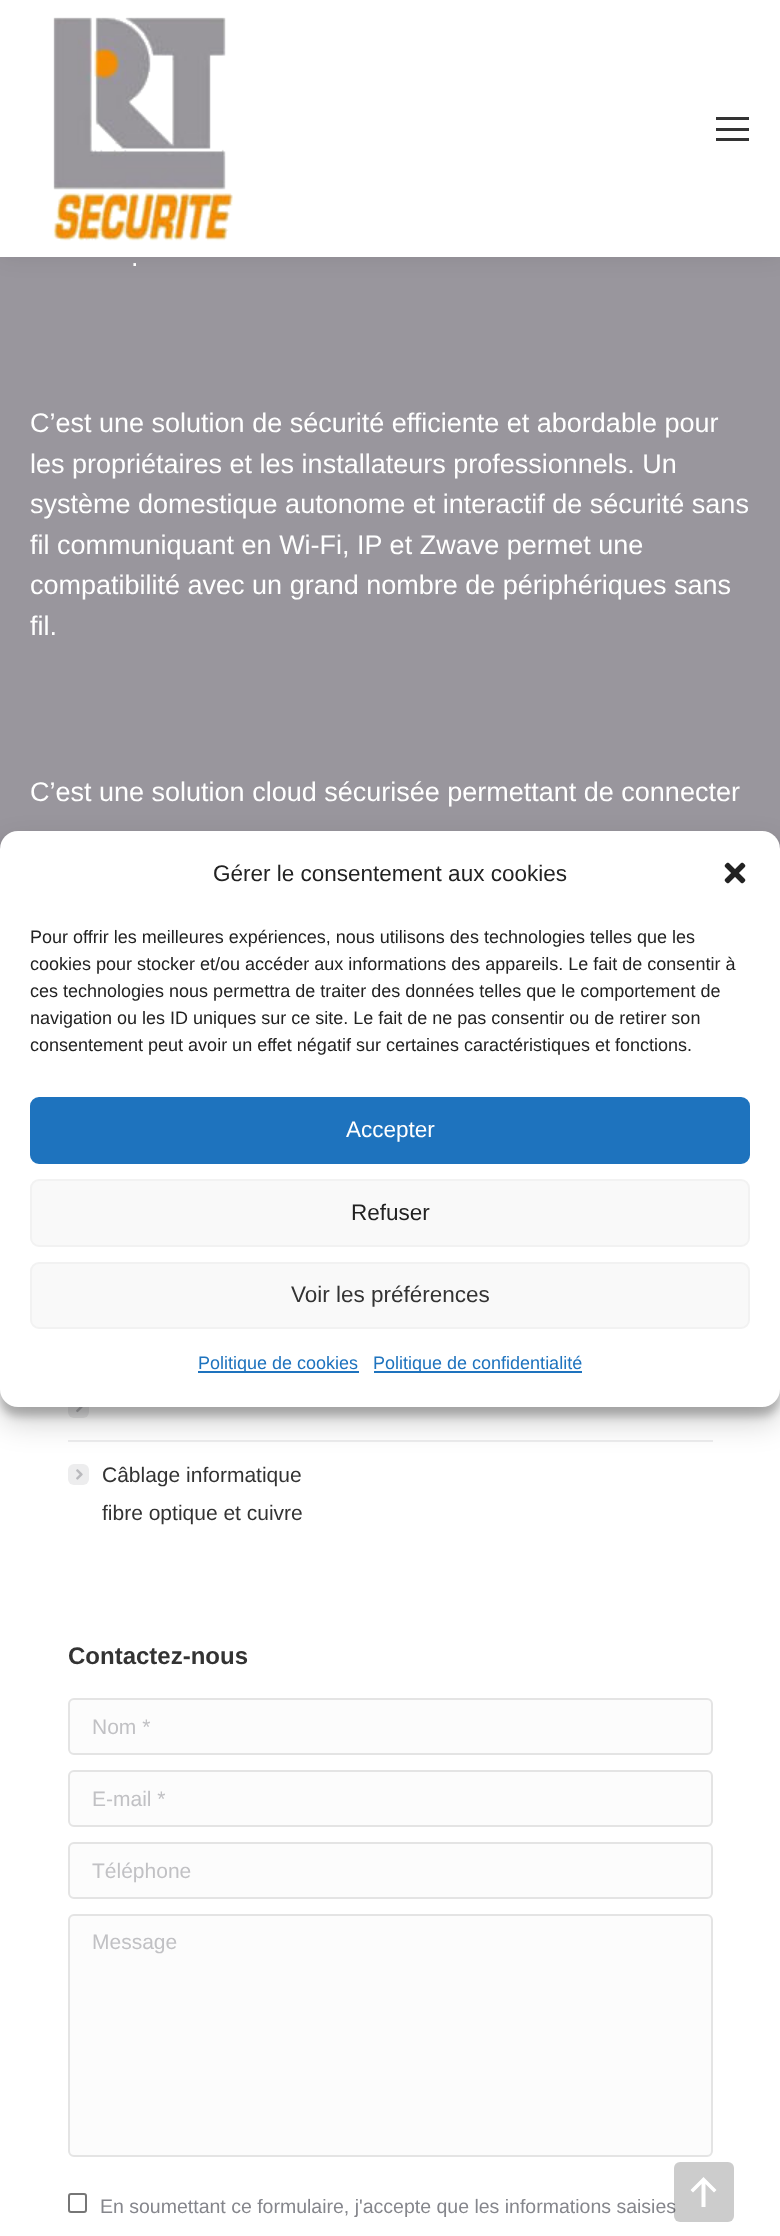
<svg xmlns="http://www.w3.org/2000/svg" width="780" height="2236">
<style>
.a{font:27px Liberation Sans;fill:#fff}
.b{font:21px Liberation Sans;fill:#333}
.c{font:bold 24px Liberation Sans;fill:#333}
.d{font:21px Liberation Sans;fill:#c1c1c4}
.e{font:19.5px Liberation Sans;fill:#85868c}
.f{font:22.5px Liberation Sans;fill:#222}
.g{font:18px Liberation Sans;fill:#222}
.h{font:22.5px Liberation Sans;fill:#fff}
.i{font:22.5px Liberation Sans;fill:#333}
.j{font:18px Liberation Sans;fill:#1e73be}
</style>
<rect width="100%" height="100%" fill="#fff"/>
<path fill="#99969d" d="M0 257h780v592H0z"/>
<path fill="#00000012" filter="blur(11px)" d="M-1 -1h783v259H-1z"/>
<path fill="#fff" d="M0 0h780v257H0z"/>
<image href="1.png" x="53" y="17" width="180" height="224"/>
<path fill="#333" d="M716 117h33v3H716z"/>
<path fill="#333" d="M716 128h33v3H716z"/>
<path fill="#333" d="M716 138h33v3H716z"/>
<rect fill="#ededee" x="68" y="1397" width="21" height="21" rx="6"/>
<image href="2.png" x="76" y="1407" width="7" height="6"/>
<path fill="#ededee" d="M68 1440h645v2H68z"/>
<rect fill="#ededee" x="68" y="1464" width="21" height="21" rx="6"/>
<image href="3.png" x="76" y="1469" width="7" height="11"/>
<rect fill="#fcfcfc" stroke="#e4e4e4" stroke-width="2" x="69" y="1699" width="643" height="55" rx="5"/>
<rect fill="#fcfcfc" stroke="#e4e4e4" stroke-width="2" x="69" y="1771" width="643" height="55" rx="5"/>
<rect fill="#fcfcfc" stroke="#e4e4e4" stroke-width="2" x="69" y="1843" width="643" height="55" rx="5"/>
<rect fill="#fcfcfc" stroke="#e4e4e4" stroke-width="2" x="69" y="1915" width="643" height="241" rx="5"/>
<rect fill="none" stroke="#767676" stroke-width="2" x="69" y="2194" width="17" height="18" rx="2"/>
<rect fill="#0000003b" filter="blur(4.5px)" y="840" width="780" height="576" rx="18"/>
<rect fill="#00000030" filter="blur(15px)" y="846" width="780" height="576" rx="18"/>
<rect fill="#fff" y="831" width="780" height="576" rx="18"/>
<image href="4.png" x="724" y="862" width="22" height="22"/>
<rect fill="#1e73be" stroke="#1e73be" stroke-width="2" x="31" y="1098" width="718" height="65" rx="8"/>
<rect fill="#f9f9f9" stroke="#f2f2f2" stroke-width="2" x="31" y="1180" width="718" height="66" rx="8"/>
<rect fill="#f9f9f9" stroke="#f2f2f2" stroke-width="2" x="31" y="1263" width="718" height="65" rx="8"/>
<path fill="#1e73be" d="M198 1371h161v2H198z"/>
<path fill="#1e73be" d="M374 1371h208v2H374z"/>
<text class="a" x="131" y="266">.</text>
<text class="a" x="30" y="432">C’est une solution de sécurité efficiente et abordable pour</text>
<text class="a" x="30" y="473">les propriétaires et les installateurs professionnels. Un</text>
<text class="a" x="30" y="513">système domestique autonome et interactif de sécurité sans</text>
<text class="a" x="30" y="554">fil communiquant en Wi-Fi, IP et Zwave permet une</text>
<text class="a" x="30" y="594">compatibilité avec un grand nombre de périphériques sans</text>
<text class="a" x="30" y="635">fil.</text>
<text class="a" x="30" y="801">C’est une solution cloud sécurisée permettant de connecter</text>
<text class="b" x="102" y="1482">Câblage informatique</text>
<text class="b" x="102" y="1520">fibre optique et cuivre</text>
<text class="c" x="68" y="1664">Contactez-nous</text>
<text class="d" x="92" y="1734">Nom *</text>
<text class="d" x="92" y="1806">E-mail *</text>
<text class="d" x="92" y="1878">Téléphone</text>
<text class="d" x="92" y="1949">Message</text>
<text class="e" x="100" y="2213">En soumettant ce formulaire, j'accepte que les informations saisies</text>
<rect fill="#00000033" x="674" y="2162" width="60" height="60" rx="6"/>
<path fill="#fff" d="M690.5 2190l2.5 2.5l8.5-8.5v23h4v-23l8.5 8.5l2.5-2.5l-13-13z"/>
<text class="f" x="213" y="881">Gérer le consentement aux cookies</text>
<text class="g" x="30" y="943">Pour offrir les meilleures expériences, nous utilisons des technologies telles que les</text>
<text class="g" x="30" y="970">cookies pour stocker et/ou accéder aux informations des appareils. Le fait de consentir à</text>
<text class="g" x="30" y="997">ces technologies nous permettra de traiter des données telles que le comportement de</text>
<text class="g" x="30" y="1024">navigation ou les ID uniques sur ce site. Le fait de ne pas consentir ou de retirer son</text>
<text class="g" x="30" y="1051">consentement peut avoir un effet négatif sur certaines caractéristiques et fonctions.</text>
<text class="h" x="346" y="1137">Accepter</text>
<text class="f" x="351" y="1220">Refuser</text>
<text class="i" x="291" y="1302">Voir les préférences</text>
<text class="j" x="198" y="1369">Politique de cookies</text>
<text class="j" x="373" y="1369">Politique de confidentialité</text>
</svg>
